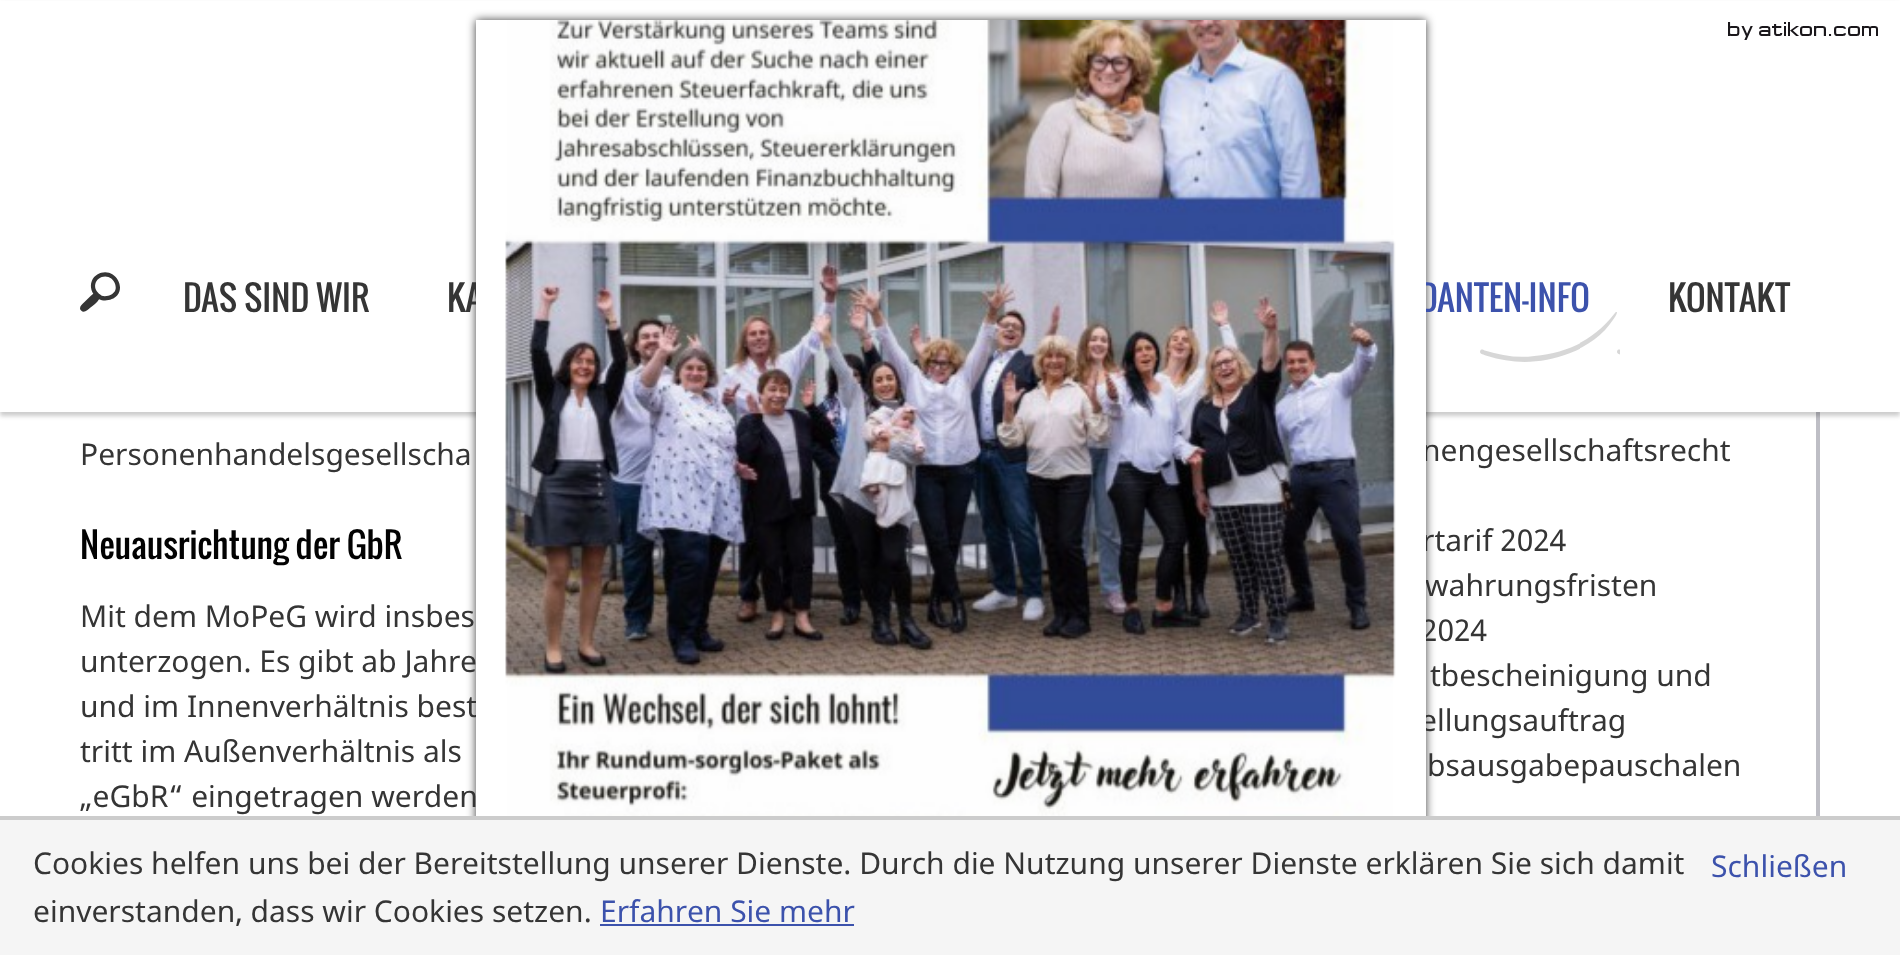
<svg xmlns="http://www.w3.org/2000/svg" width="1900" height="955">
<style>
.a{font:34px Oswald;fill:#353535}
.b{font:34px Oswald;fill:#3c52ac}
.c{font:30px Noto Sans;fill:#353535}
.d{font:34px Oswald;fill:#020202}
.e{font:30px Noto Sans;fill:#3c52ac}
</style>
<rect width="100%" height="100%" fill="#fff"/>
<path fill="none" stroke="#bebec5" stroke-width="4" d="M1296 50h522v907H1296z"/>
<path fill="#00000033" filter="blur(2px)" d="M0 4h1900v412H0z"/>
<path fill="#fff" d="M0 1h1900v411H0z"/>
<path fill="#000000bf" filter="blur(5px)" d="M476 20h950v860H476z"/>
<image href="2.png" x="1728" y="22" width="150" height="18"/>
<image href="3.png" x="80" y="272" width="40" height="40"/>
<path fill="#f5f5f5" d="M0 820h1900v135H0z"/>
<path fill="#ccc" d="M0 816h1900v4H0z"/>
<path fill="#3c52ac" d="M600 924h254v2H600z"/>
<text class="a" x="183" y="312">DAS SIND WIR</text>
<text class="a" x="447" y="312">KA</text>
<text class="b" x="1419" y="312">DANTEN-INFO</text>
<image href="4.png" x="1480" y="312" width="140" height="50"/>
<text class="a" x="1668" y="312">KONTAKT</text>
<text class="c" x="80" y="465">Personenhandelsgesellscha</text>
<text class="d" x="80" y="559">Neuausrichtung der GbR</text>
<text class="c" x="80" y="627">Mit dem MoPeG wird insbes</text>
<text class="c" x="80" y="672">unterzogen. Es gibt ab Jahre</text>
<text class="c" x="80" y="717">und im Innenverhältnis best</text>
<text class="c" x="80" y="762">tritt im Außenverhältnis als</text>
<text class="c" x="80" y="807">„eGbR“ eingetragen werden</text>
<text class="c" x="1422" y="461">nengesellschaftsrecht</text>
<text class="c" x="1422" y="551">rtarif 2024</text>
<text class="c" x="1425" y="596">wahrungsfristen</text>
<text class="c" x="1421" y="641">2024</text>
<text class="c" x="1430" y="686">tbescheinigung und</text>
<text class="c" x="1420" y="731">ellungsauftrag</text>
<path fill="#fff" d="M476 20h950v796H476z"/>
<image href="1.png" x="505" y="20" width="891" height="796"/>
<text class="c" x="1427" y="776">bsausgabepauschalen</text>
<text class="c" x="33" y="874">Cookies helfen uns bei der Bereitstellung unserer Dienste. Durch die Nutzung unserer Dienste erklären Sie sich damit</text>
<text class="e" x="1711" y="877">Schließen</text>
<text class="c" x="33" y="922">einverstanden, dass wir Cookies setzen.</text>
<text class="e" x="600" y="922">Erfahren Sie mehr</text>
</svg>
